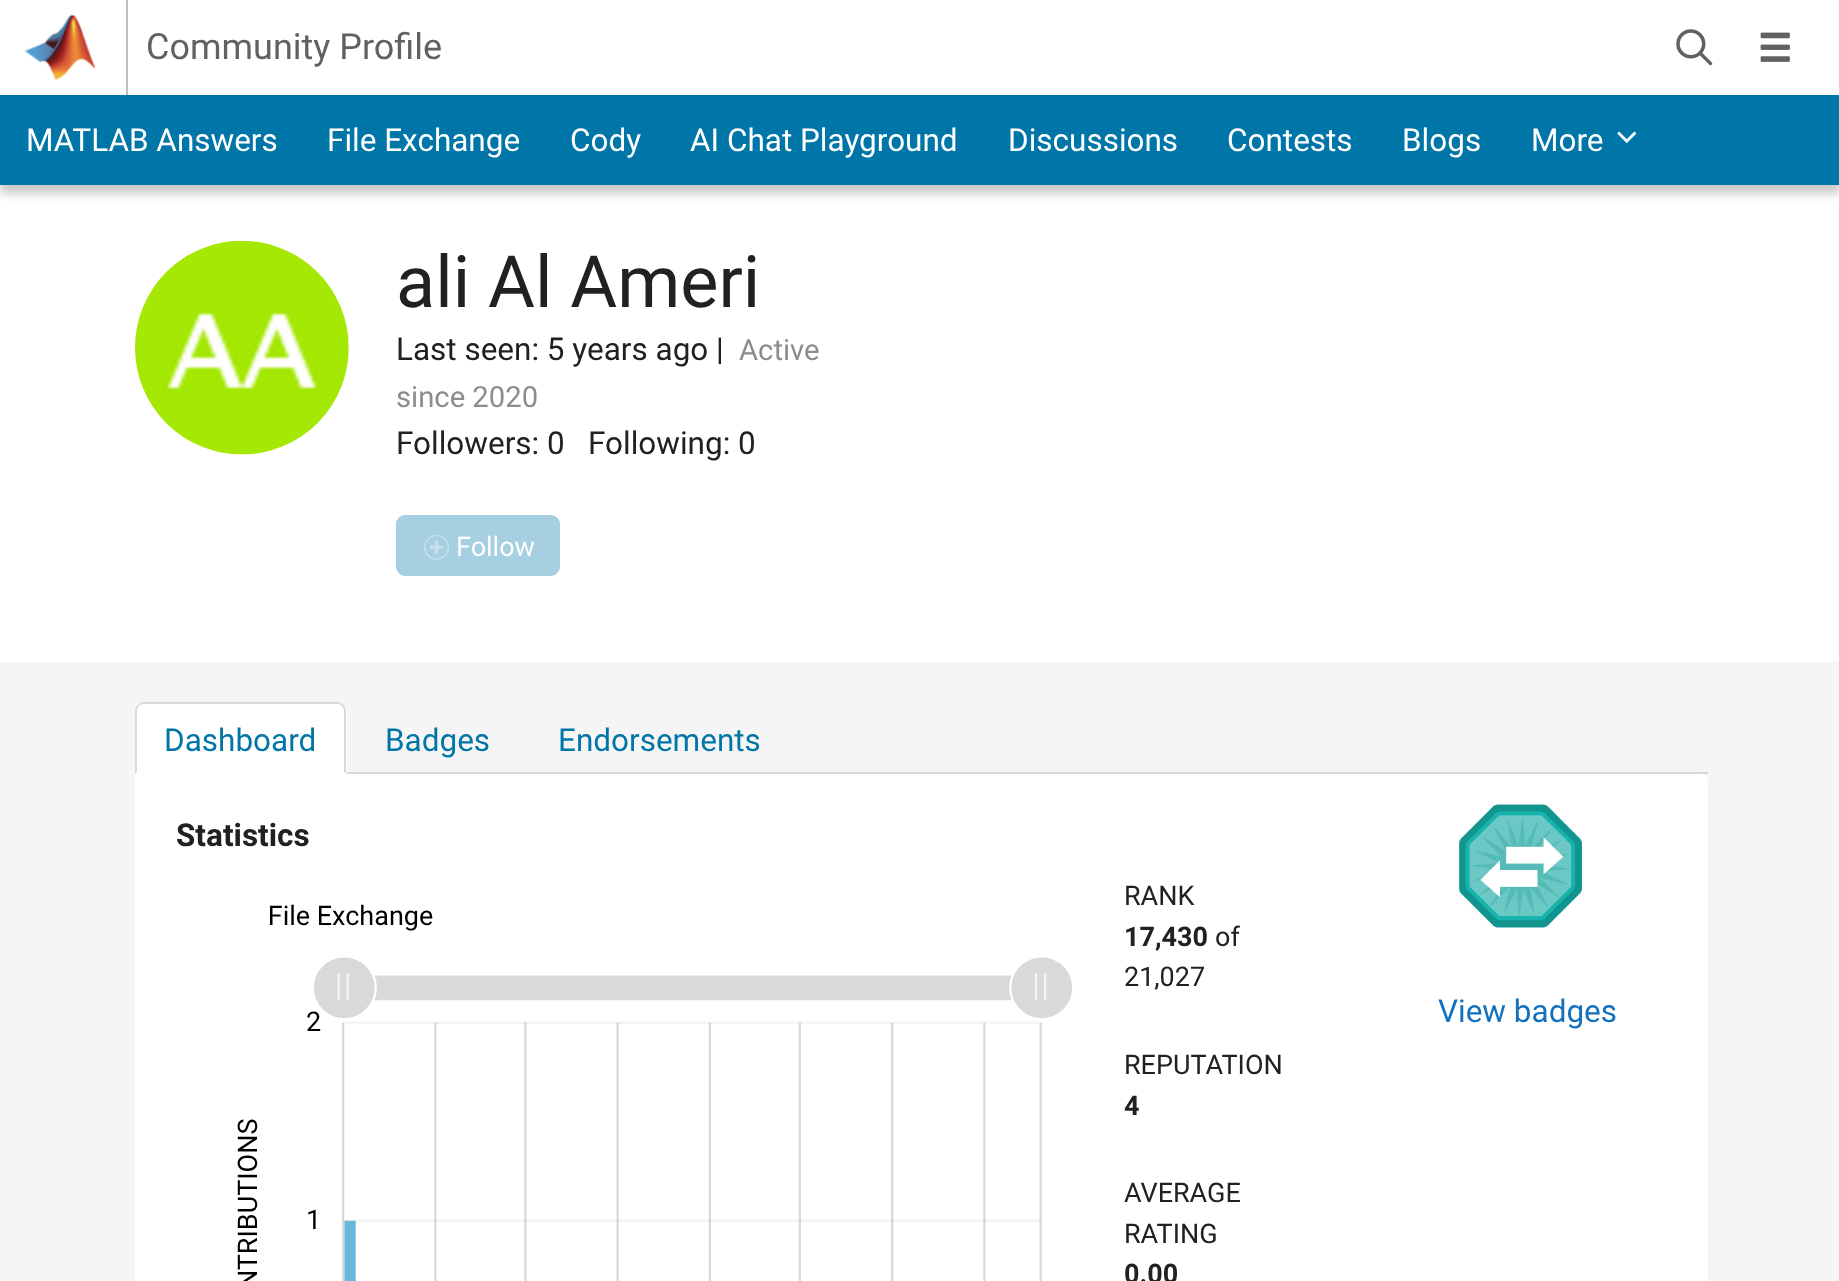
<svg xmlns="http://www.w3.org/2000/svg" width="1839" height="1281">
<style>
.a{font:36px Roboto;fill:#616161}
.b{font:31.5px Roboto;fill:#fff}
.c{font:72px Roboto;fill:#212121}
.d{font:31.5px Roboto;fill:#212121}
.e{font:29.25px Roboto;fill:#8c8c8c}
.f{font:27px Roboto;fill:#fff}
.g{font:31.5px Roboto;fill:#0076a8}
.h{font:bold 31.5px Roboto;fill:#212121}
.i{font:27px Roboto;fill:#212121}
.j{font:bold 27px Roboto;fill:#212121}
.k{font:31.5px Roboto;fill:#1171be}
</style>
<rect width="100%" height="100%" fill="#fff"/>
<path fill="#bfbfbf" d="M126 0h2v95H126z"/>
<image href="1.png" x="24" y="14" width="72" height="66"/>
<image href="2.png" x="1676" y="29" width="37" height="37"/>
<image href="3.png" x="1760" y="32" width="30" height="30"/>
<path fill="#00000033" filter="blur(4.5px)" d="M0 104h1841v90H0z"/>
<path fill="#0076a8" d="M0 95h1839v90H0z"/>
<image href="4.png" x="1617" y="131" width="20" height="12"/>
<image href="5.png" x="135" y="240" width="214" height="215"/>
<rect fill="#a6cfe1" stroke="#a6cfe1" stroke-width="2" x="397" y="516" width="162" height="59" rx="8"/>
<image href="6.png" x="423" y="534" width="27" height="26"/>
<path fill="#f5f5f5" d="M0 662h1839v619H0z"/>
<path fill="#fff" d="M144 702h194c5 0 9 4 9 9v63h-212v-63c0-5 4-9 9-9z"/>
<path fill="#d9d9d9" d="M144 702c-2 0-5 1-6 3l1 1c1-1 3-2 5-2h194c2 0 3 1 4 2l2-1c-2-2-4-3-6-3z"/>
<path fill="#d9d9d9" d="M344 705c1 1 2 4 2 6v63l-2-2v-61c0-2-1-4-2-5z"/>
<path fill="#fff" d="M346 774l-2-2h-207l-2 2z"/>
<path fill="#d9d9d9" d="M135 774l2-2v-61c0-2 1-4 2-5l-1-1c-2 1-3 3-3 6z"/>
<path fill="#d9d9d9" d="M347 772h1361v2H347z"/>
<path fill="#fff" d="M135 774h1566c4 0 7 3 7 7v500c0 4-3 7-7 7h-1559c-4 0-7-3-7-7z"/>
<image href="7.png" x="237" y="904" width="835" height="377"/>
<image href="8.png" x="1459" y="804" width="124" height="124"/>
<text class="a" x="146" y="59">Community Profile</text>
<text class="b" x="26" y="151">MATLAB Answers</text>
<text class="b" x="327" y="151">File Exchange</text>
<text class="b" x="570" y="151">Cody</text>
<text class="b" x="690" y="151">AI Chat Playground</text>
<text class="b" x="1008" y="151">Discussions</text>
<text class="b" x="1227" y="151">Contests</text>
<text class="b" x="1402" y="151">Blogs</text>
<text class="b" x="1531" y="151">More</text>
<text class="c" x="396" y="307">ali Al Ameri</text>
<text class="d" x="396" y="360">Last seen: 5 years ago |</text>
<text class="e" x="739" y="360">Active</text>
<text class="e" x="396" y="407">since 2020</text>
<text class="d" x="396" y="454">Followers: 0</text>
<text class="d" x="588" y="454">Following: 0</text>
<text class="f" x="456" y="556">Follow</text>
<text class="g" x="164" y="751">Dashboard</text>
<text class="g" x="385" y="751">Badges</text>
<text class="g" x="558" y="751">Endorsements</text>
<text class="h" x="176" y="846">Statistics</text>
<text class="i" x="1124" y="905">RANK</text>
<text class="j" x="1124" y="946">17,430</text>
<text class="i" x="1215" y="946">of</text>
<text class="i" x="1124" y="986">21,027</text>
<text class="i" x="1124" y="1074">REPUTATION</text>
<text class="j" x="1124" y="1115">4</text>
<text class="i" x="1124" y="1202">AVERAGE</text>
<text class="i" x="1124" y="1243">RATING</text>
<text class="j" x="1124" y="1283">0.00</text>
<text class="k" x="1438" y="1022">View badges</text>
</svg>
